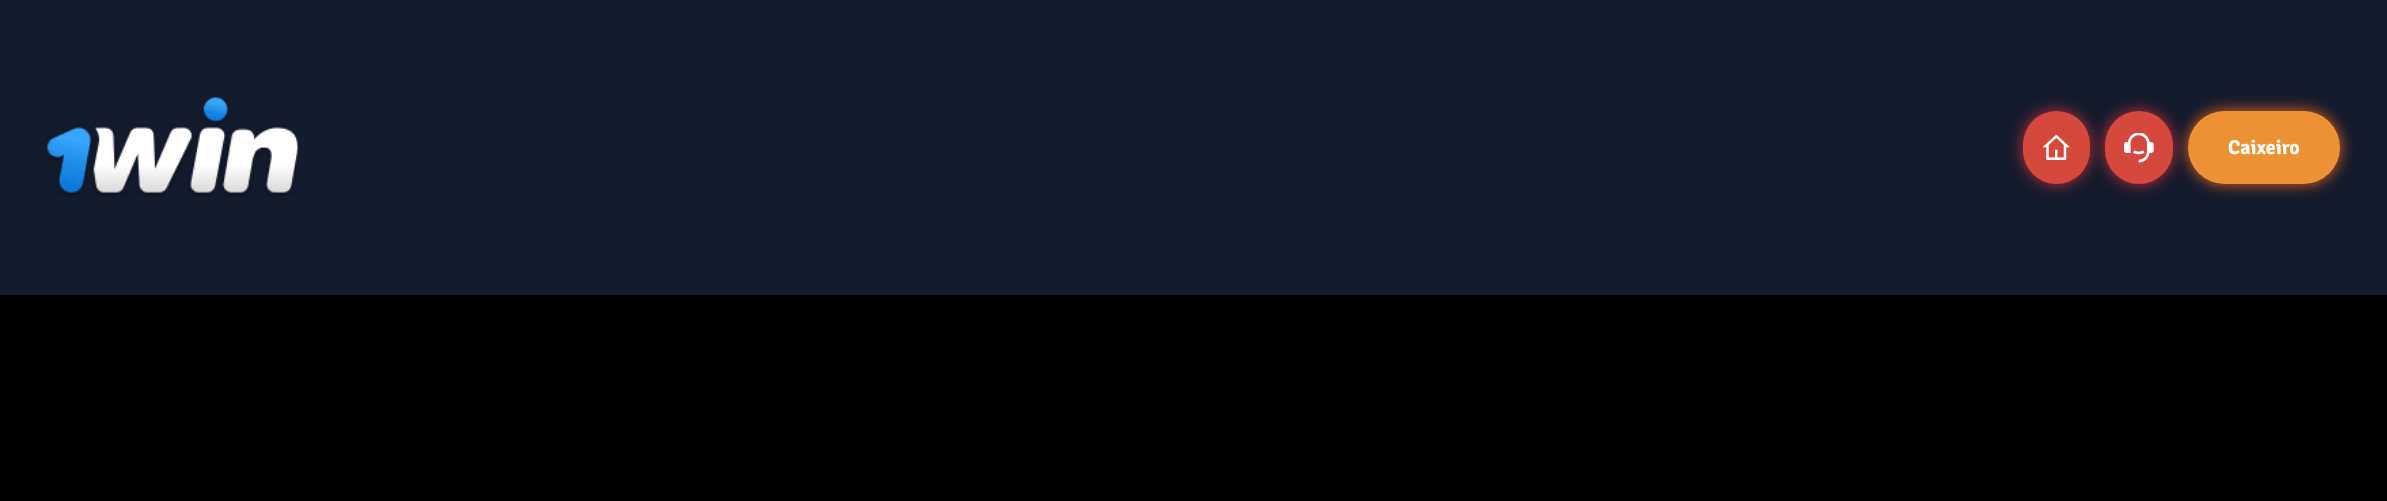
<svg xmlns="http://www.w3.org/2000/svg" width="2387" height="501">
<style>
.a{font:bold 20px Signika;fill:#fff}
</style>
<rect width="100%" height="100%" fill="#131b2d"/>
<image href="1.png" x="47" y="97" width="251" height="100"/>
<rect fill="#c23038" filter="blur(7.5px)" x="2023" y="111" width="67" height="73" rx="33.5"/>
<rect fill="#d4483e" x="2023" y="111" width="67" height="73" rx="33.5"/>
<image href="2.png" x="2042" y="135" width="28" height="25"/>
<rect fill="#c23038" filter="blur(7.5px)" x="2105" y="111" width="68" height="73" rx="34"/>
<rect fill="#d4483e" x="2105" y="111" width="68" height="73" rx="34"/>
<image href="3.png" x="2124" y="133" width="30" height="30"/>
<rect fill="#e8661d" filter="blur(7.5px)" x="2188" y="111" width="152" height="73" rx="36.5"/>
<rect fill="#ed9135" x="2188" y="111" width="152" height="73" rx="36.5"/>
<path fill="#000" d="M0 295h2387v206H0z"/>
<text class="a" x="2228" y="154">Caixeiro</text>
</svg>
